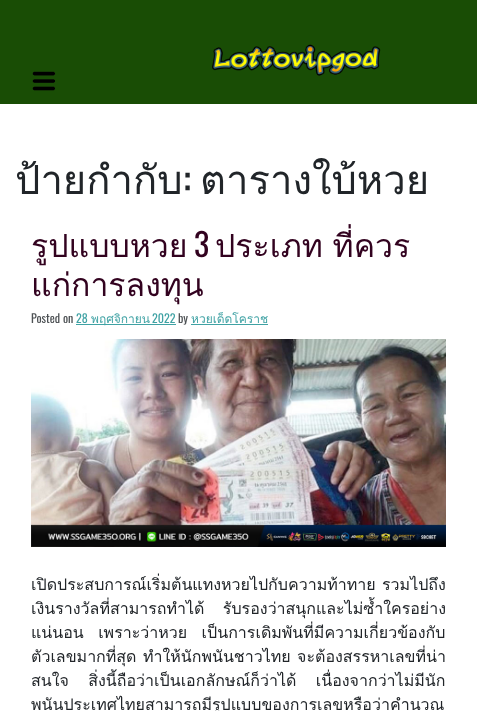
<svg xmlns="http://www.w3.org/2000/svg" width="477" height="711">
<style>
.a{font:40px Loma;fill:#212529}
.b{font:40px Oswald;fill:#212529}
.c{font:32px Loma;fill:#32021f}
.d{font:32px Oswald;fill:#32021f}
.e{font:12px Oswald;fill:#4d5154}
.f{font:12px Oswald;fill:#3fa2a4}
.g{font:12px Loma;fill:#3fa2a4}
.h{font:16px Loma;fill:#212529}
</style>
<rect width="100%" height="100%" fill="#fff"/>
<path fill="#194d05" d="M0 0h477v104H0z"/>
<image href="1.png" x="212" y="44" width="169" height="32"/>
<image href="2.png" x="32" y="71" width="24" height="20"/>
<path fill="#3fa2a4" d="M76 324h100v1H76z"/>
<path fill="#3fa2a4" d="M191 324h77v1H191z"/>
<image href="3.png" x="31" y="339" width="415" height="208"/>
<text class="a" x="15" y="194">ป้ายกำกับ</text>
<text class="b" x="183" y="194">:</text>
<text class="a" x="200" y="194">ตารางใบ้หวย</text>
<text class="c" x="31" y="257">รูปแบบหวย</text>
<text class="d" x="194" y="257">3</text>
<text class="c" x="215" y="257" word-spacing="-1">ประเภท ที่ควร</text>
<text class="c" x="31" y="296">แก่การลงทุน</text>
<text class="e" x="31" y="323">Posted on</text>
<text class="f" x="76" y="323">28</text>
<text class="g" x="91" y="323">พฤศจิกายน</text>
<text class="f" x="152" y="323">2022</text>
<text class="e" x="178" y="323">by</text>
<text class="g" x="191" y="323">หวยเด็ดโคราช</text>
<text class="h" x="31" y="590" word-spacing="1">เปิดประสบการณ์เริ่มต้นแทงหวยไปกับความท้าทาย รวมไปถึง</text>
<text class="h" x="31" y="614" word-spacing="13">เงินรางวัลที่สามารถทำได้ รับรองว่าสนุกและไม่ซ้ำใครอย่าง</text>
<text class="h" x="31" y="638" word-spacing="9">แน่นอน เพราะว่าหวย เป็นการเดิมพันที่มีความเกี่ยวข้องกับ</text>
<text class="h" x="31" y="662" word-spacing="1">ตัวเลขมากที่สุด ทำให้นักพนันชาวไทย จะต้องสรรหาเลขที่น่า</text>
<text class="h" x="31" y="686" word-spacing="14">สนใจ สิ่งนี้ถือว่าเป็นเอกลักษณ์ก็ว่าได้ เนื่องจากว่าไม่มีนัก</text>
<text class="h" x="31" y="710">พนันประเทศไทยสามารถมีรูปแบบของการเลขหรือว่าคำนวณ</text>
</svg>
